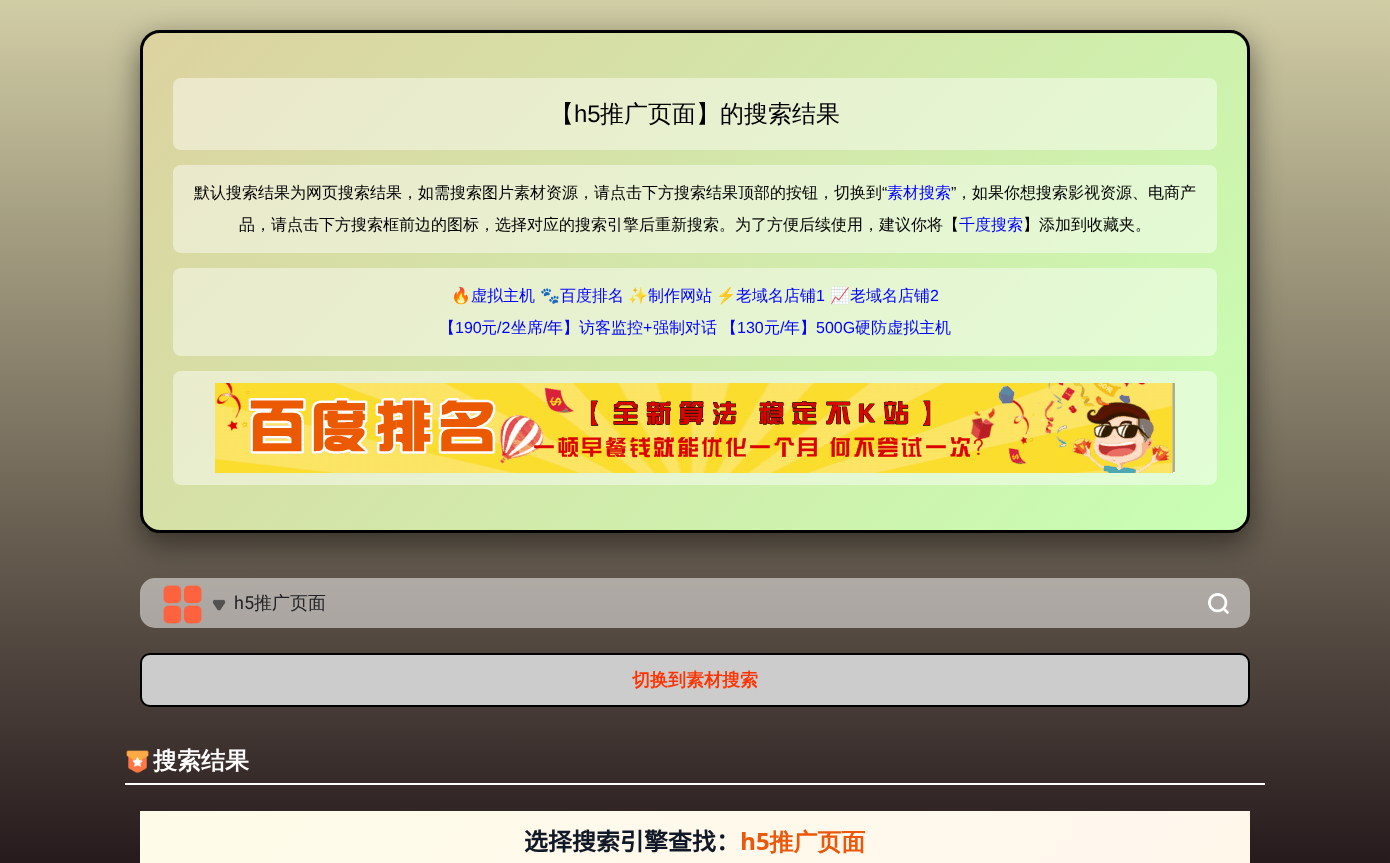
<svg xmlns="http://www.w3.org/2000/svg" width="1390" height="863">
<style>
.a{font:500 24px WenQuanYi Zen Hei;fill:#000}
.b{font:24px Liberation Sans;fill:#000}
.c{font:500 16px WenQuanYi Zen Hei;fill:#000}
.d{font:16px Liberation Sans;fill:#000}
.e{font:500 16px WenQuanYi Zen Hei;fill:#00f}
.f{font:16px Noto Color Emoji;fill:#000}
.g{font:16px Liberation Sans;fill:#00f}
.h{font:18px Roboto;fill:#222226}
.i{font:500 18px WenQuanYi Zen Hei;fill:#222226}
.j{font:bold 18px WenQuanYi Zen Hei;fill:#f30}
.k{font:bold 24px WenQuanYi Zen Hei;fill:#fff}
</style>
<defs>
<linearGradient id="g1" gradientUnits="userSpaceOnUse" x1="695" y1="0" x2="695" y2="863"><stop offset="0" stop-color="#d1cda5"/><stop offset="1" stop-color="#271a1d"/></linearGradient>
<clipPath id="clip1"><rect x="140" y="30" width="1110" height="503" rx="20"/></clipPath>
<linearGradient id="g2" gradientUnits="userSpaceOnUse" x1="295" y1="-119" x2="1095" y2="682"><stop offset="0" stop-color="#dcd2a0"/><stop offset="1" stop-color="#c8ffb4"/></linearGradient>
</defs>
<rect width="100%" height="100%" fill="#fff"/>
<path fill="url(#g1)" d="M0 0h1390v863H0z"/>
<rect fill="#00000080" filter="blur(15px)" x="140" y="40" width="1110" height="503" rx="20"/>
<g clip-path="url(#clip1)">
<path fill="url(#g2)" d="M143 33h1104v497H143z"/>
</g>
<rect fill="none" stroke="#000" stroke-width="3" x="141.5" y="31.5" width="1107" height="500" rx="18.5"/>
<rect fill="#ffffff73" x="173" y="78" width="1044" height="72" rx="8"/>
<rect fill="#ffffff73" x="173" y="165" width="1044" height="88" rx="8"/>
<rect fill="#ffffff73" x="173" y="268" width="1044" height="88" rx="8"/>
<rect fill="#ffffff73" x="173" y="371" width="1044" height="114" rx="8"/>
<image href="1.png" x="215" y="383" width="960" height="90"/>
<rect fill="#ffffff80" x="140" y="578" width="1110" height="50" rx="15"/>
<image href="2.png" x="163" y="585" width="39" height="39"/>
<image href="3.png" x="212" y="599" width="14" height="12"/>
<image href="4.png" x="1208" y="593" width="21" height="21"/>
<rect fill="#ccc" stroke="#000" stroke-width="2" x="141" y="654" width="1108" height="52" rx="9"/>
<path fill="#fff" d="M125 783h1140v2H125z"/>
<image href="5.png" x="126" y="750" width="23" height="24"/>
<image href="6.png" x="140" y="811" width="1110" height="52"/>
<text class="a" x="550" y="122">【</text>
<text class="b" x="574" y="122">h5</text>
<text class="a" x="600" y="122">推广页面】的搜索结果</text>
<text class="c" x="194" y="198">默认搜索结果为网页搜索结果，如需搜索图片素材资源，请点击下方搜索结果顶部的按钮，切换到</text>
<text class="d" x="882" y="198">“</text>
<text class="e" x="887" y="198">素材搜索</text>
<text class="d" x="951" y="198">”</text>
<text class="c" x="956" y="198">，如果你想搜索影视资源、电商产</text>
<text class="c" x="239" y="230">品，请点击下方搜索框前边的图标，选择对应的搜索引擎后重新搜索。为了方便后续使用，建议你将【</text>
<text class="e" x="959" y="230">千度搜索</text>
<text class="c" x="1023" y="230">】添加到收藏夹。</text>
<text class="f" x="451" y="301">🔥</text>
<text class="e" x="471" y="301">虚拟主机</text>
<text class="f" x="540" y="301">🐾</text>
<text class="e" x="560" y="301">百度排名</text>
<text class="f" x="628" y="301">✨</text>
<text class="e" x="648" y="301">制作网站</text>
<text class="f" x="716" y="301">⚡</text>
<text class="e" x="736" y="301">老域名店铺</text>
<text class="g" x="816" y="301">1</text>
<text class="f" x="830" y="301">📈</text>
<text class="e" x="850" y="301">老域名店铺</text>
<text class="g" x="930" y="301">2</text>
<text class="e" x="439" y="333">【</text>
<text class="g" x="455" y="333">190</text>
<text class="e" x="481" y="333">元</text>
<text class="g" x="497" y="333">/2</text>
<text class="e" x="511" y="333">坐席</text>
<text class="g" x="543" y="333">/</text>
<text class="e" x="547" y="333">年】访客监控</text>
<text class="g" x="643" y="333">+</text>
<text class="e" x="653" y="333">强制对话</text>
<text class="e" x="721" y="333">【</text>
<text class="g" x="737" y="333">130</text>
<text class="e" x="764" y="333">元</text>
<text class="g" x="780" y="333">/</text>
<text class="e" x="784" y="333">年】</text>
<text class="g" x="816" y="333">500G</text>
<text class="e" x="855" y="333">硬防虚拟主机</text>
<text class="h" x="234" y="609">h5</text>
<text class="i" x="254" y="609">推广页面</text>
<text class="j" x="632" y="686">切换到素材搜索</text>
<text class="k" x="153" y="769">搜索结果</text>
</svg>
